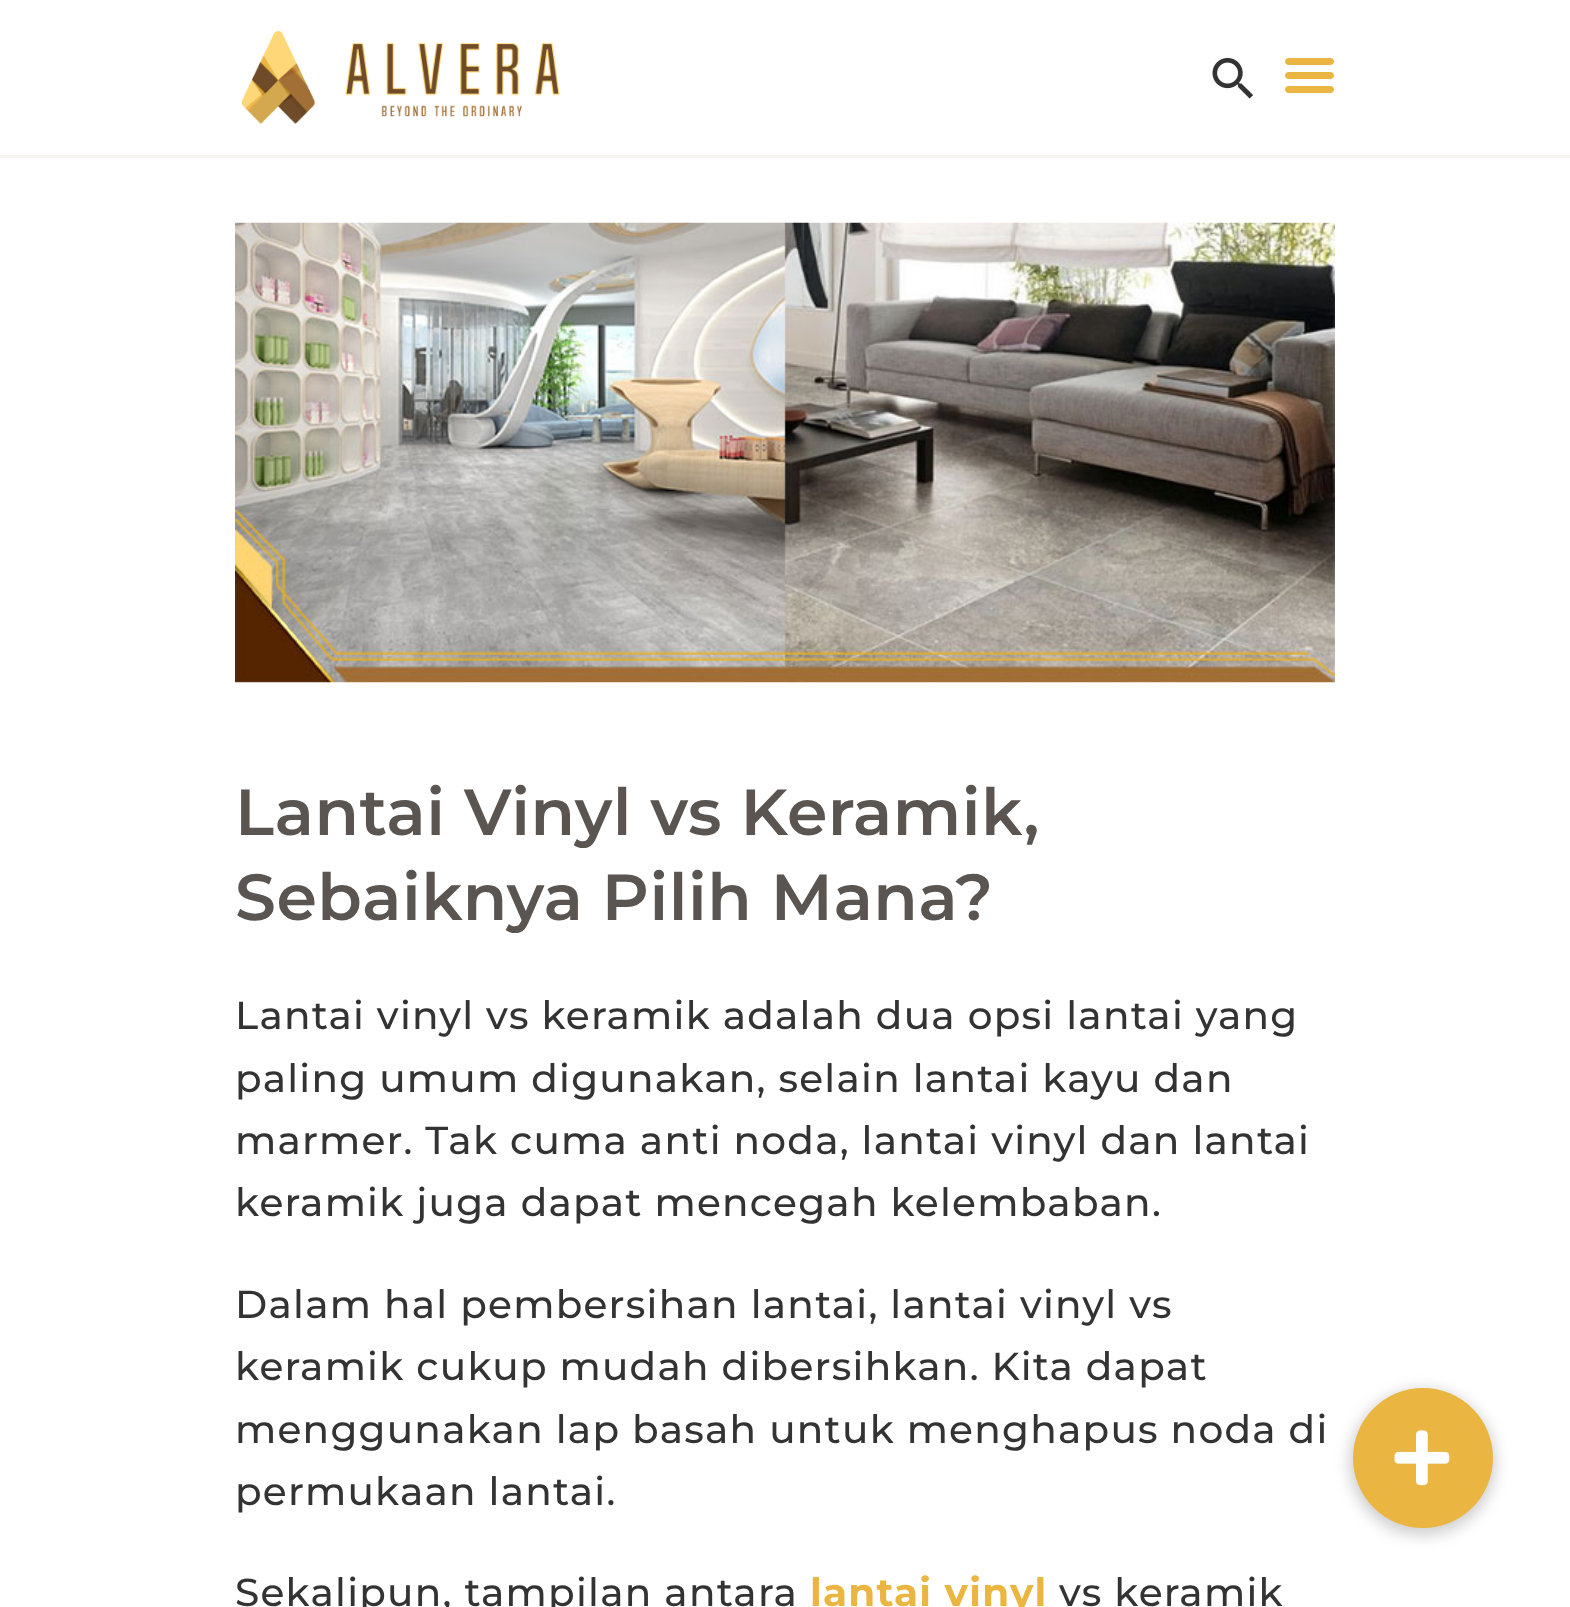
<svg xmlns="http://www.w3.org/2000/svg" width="1570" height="1607">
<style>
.a{font:600 65px Montserrat;letter-spacing:0.5px;fill:#5b5551}
.b{font:500 39px Montserrat;letter-spacing:1.25px;fill:#333}
.c{font:bold 39px Montserrat;letter-spacing:1.25px;fill:#eab541}
</style>
<rect width="100%" height="100%" fill="#fff"/>
<path fill="#f5f4f0" d="M0 155h1570v3H0z"/>
<image href="1.png" x="241" y="30" width="319" height="94"/>
<image href="2.png" x="1212" y="58" width="41" height="41"/>
<image href="3.png" x="1285" y="58" width="49" height="35"/>
<image href="4.png" x="235" y="222" width="1100" height="461"/>
<rect fill="#00000033" filter="blur(7.5px)" x="1350" y="1390" width="145" height="145" rx="72.5"/>
<circle fill="#eab541" cx="1423" cy="1458" r="70"/>
<image href="5.png" x="1394" y="1430" width="56" height="56"/>
<text class="a" x="235" y="835">Lantai Vinyl vs Keramik,</text>
<text class="a" x="235" y="920">Sebaiknya Pilih Mana?</text>
<text class="b" x="235" y="1029">Lantai vinyl vs keramik adalah dua opsi lantai yang</text>
<text class="b" x="235" y="1092">paling umum digunakan, selain lantai kayu dan</text>
<text class="b" x="235" y="1154">marmer. Tak cuma anti noda, lantai vinyl dan lantai</text>
<text class="b" x="235" y="1216">keramik juga dapat mencegah kelembaban.</text>
<text class="b" x="235" y="1318">Dalam hal pembersihan lantai, lantai vinyl vs</text>
<text class="b" x="235" y="1380">keramik cukup mudah dibersihkan. Kita dapat</text>
<text class="b" x="235" y="1443">menggunakan lap basah untuk menghapus noda di</text>
<text class="b" x="235" y="1505">permukaan lantai.</text>
<text class="b" x="235" y="1606">Sekalipun, tampilan antara</text>
<text class="c" x="810" y="1606">lantai vinyl</text>
<text class="b" x="1059" y="1606">vs keramik</text>
</svg>
